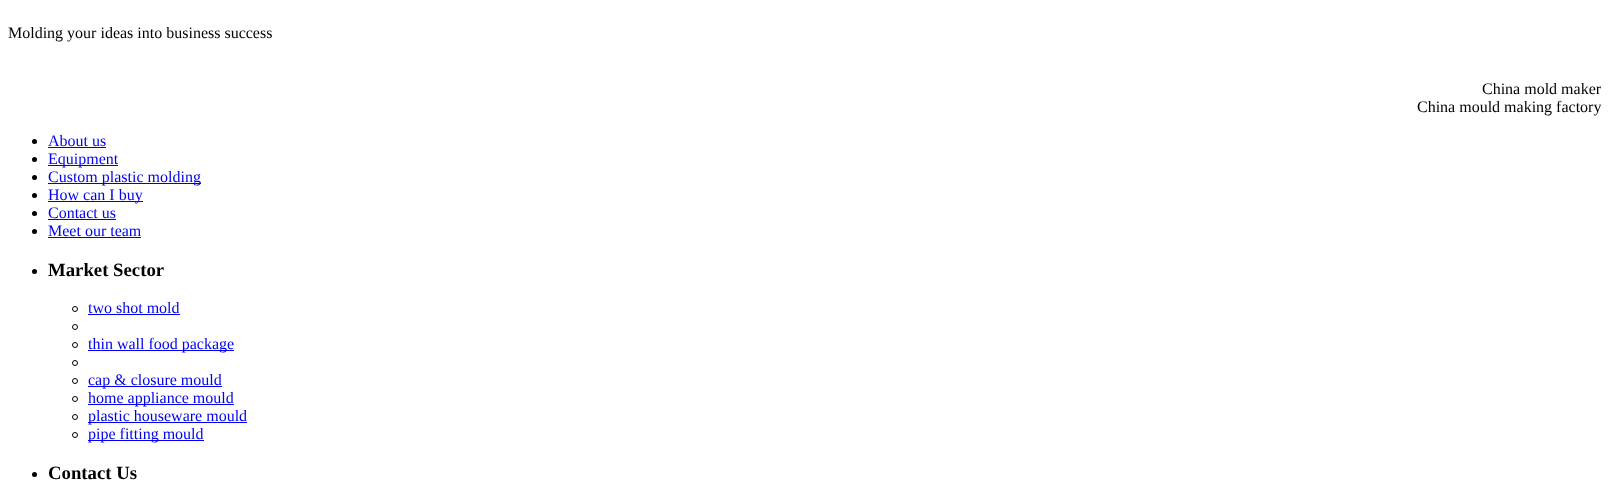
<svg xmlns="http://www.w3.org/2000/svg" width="1609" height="487">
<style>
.a{font:16px Liberation Serif;fill:#000}
.b{font:16px Liberation Serif;fill:#00e}
.c{font:bold 18.75px Liberation Serif;fill:#000}
</style>
<rect width="100%" height="100%" fill="#fff"/>
<circle fill="#000" cx="34.5" cy="141.5" r="2.5"/>
<path fill="#00e" d="M48 147h58v1H48z"/>
<circle fill="#000" cx="34.5" cy="159.5" r="2.5"/>
<path fill="#00e" d="M48 165h70v1H48z"/>
<circle fill="#000" cx="34.5" cy="177.5" r="2.5"/>
<path fill="#00e" d="M48 183h153v1H48z"/>
<circle fill="#000" cx="34.5" cy="195.5" r="2.5"/>
<path fill="#00e" d="M48 201h95v1H48z"/>
<circle fill="#000" cx="34.5" cy="213.5" r="2.5"/>
<path fill="#00e" d="M48 219h68v1H48z"/>
<circle fill="#000" cx="34.5" cy="231.5" r="2.5"/>
<path fill="#00e" d="M48 237h93v1H48z"/>
<circle fill="#000" cx="34.5" cy="271.5" r="2.5"/>
<circle fill="none" stroke="#000" cx="75" cy="309" r="2.5"/>
<path fill="#00e" d="M88 314h92v1H88z"/>
<circle fill="none" stroke="#000" cx="75" cy="327" r="2.5"/>
<circle fill="none" stroke="#000" cx="75" cy="345" r="2.5"/>
<path fill="#00e" d="M88 350h146v1H88z"/>
<circle fill="none" stroke="#000" cx="75" cy="363" r="2.5"/>
<circle fill="none" stroke="#000" cx="75" cy="381" r="2.5"/>
<path fill="#00e" d="M88 386h134v1H88z"/>
<circle fill="none" stroke="#000" cx="75" cy="399" r="2.5"/>
<path fill="#00e" d="M88 404h146v1H88z"/>
<circle fill="none" stroke="#000" cx="75" cy="417" r="2.5"/>
<path fill="#00e" d="M88 422h159v1H88z"/>
<circle fill="none" stroke="#000" cx="75" cy="435" r="2.5"/>
<path fill="#00e" d="M88 440h116v1H88z"/>
<circle fill="#000" cx="34.5" cy="474.5" r="2.5"/>
<text class="a" x="8" y="38">Molding your ideas into business success</text>
<text class="a" x="1482" y="94">China mold maker</text>
<text class="a" x="1417" y="112">China mould making factory</text>
<text class="b" x="48" y="146">About us</text>
<text class="b" x="48" y="164">Equipment</text>
<text class="b" x="48" y="182">Custom plastic molding</text>
<text class="b" x="48" y="200">How can I buy</text>
<text class="b" x="48" y="218">Contact us</text>
<text class="b" x="48" y="236">Meet our team</text>
<text class="c" x="48" y="276">Market Sector</text>
<text class="b" x="88" y="313">two shot mold</text>
<text class="b" x="88" y="349">thin wall food package</text>
<text class="b" x="88" y="385">cap &amp; closure mould</text>
<text class="b" x="88" y="403">home appliance mould</text>
<text class="b" x="88" y="421">plastic houseware mould</text>
<text class="b" x="88" y="439">pipe fitting mould</text>
<text class="c" x="48" y="479">Contact Us</text>
</svg>
